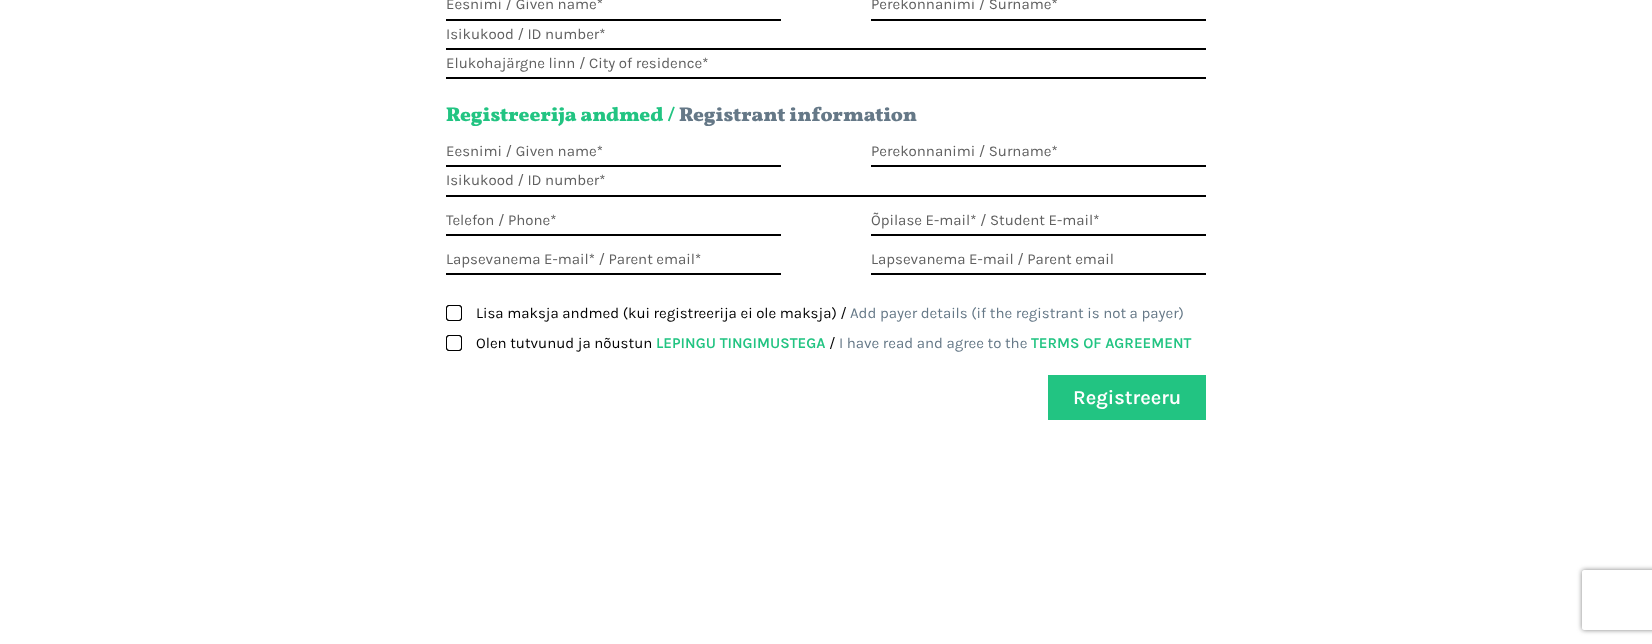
<svg xmlns="http://www.w3.org/2000/svg" width="1652" height="644">
<style>
.a{font:15px Karla;fill:#606060}
.b{font:900 20px Vollkorn;fill:#22c482}
.c{font:900 20px Vollkorn;fill:#657887}
.d{font:15px Karla;fill:#000}
.e{font:15px Karla;fill:#657887}
.f{font:600 15px Karla;fill:#22c482}
.g{font:600 20px Karla;fill:#fff}
</style>
<defs>
<clipPath id="clip1"><path d="M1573 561h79v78h-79zm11 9h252c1 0 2 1 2 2v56c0 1-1 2-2 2h-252c-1 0-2-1-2-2v-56c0-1 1-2 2-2z" clip-rule="evenodd"/></clipPath>
</defs>
<rect width="100%" height="100%" fill="#fff"/>
<path fill="#000" d="M446 19h335v2H446z"/>
<path fill="#000" d="M871 19h335v2H871z"/>
<path fill="#000" d="M446 48h760v2H446z"/>
<path fill="#000" d="M446 77h760v2H446z"/>
<path fill="#000" d="M446 165h335v2H446z"/>
<path fill="#000" d="M871 165h335v2H871z"/>
<path fill="#000" d="M446 195h760v2H446z"/>
<path fill="#000" d="M446 234h335v2H446z"/>
<path fill="#000" d="M871 234h335v2H871z"/>
<path fill="#000" d="M446 273h335v2H446z"/>
<path fill="#000" d="M871 273h335v2H871z"/>
<rect fill="none" stroke="#000" x="446.5" y="305.5" width="15" height="15" rx="2.5"/>
<rect fill="none" stroke="#000" x="446.5" y="305.5" width="15" height="15" rx="2.5"/>
<rect fill="none" stroke="#000" x="446.5" y="335.5" width="15" height="15" rx="2.5"/>
<rect fill="none" stroke="#000" x="446.5" y="335.5" width="15" height="15" rx="2.5"/>
<path fill="#22c482" d="M1048 375h158v45H1048z"/>
<g clip-path="url(#clip1)">
<rect fill="#808080" filter="blur(2.5px)" x="1582" y="570" width="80" height="60" rx="2"/>
</g>
<text class="a" x="446" y="9">Eesnimi / Given name*</text>
<text class="a" x="871" y="9">Perekonnanimi / Surname*</text>
<text class="a" x="446" y="39">Isikukood / ID number*</text>
<text class="a" x="446" y="68">Elukohajärgne linn / City of residence*</text>
<text class="b" x="446" y="121">Registreerija andmed /</text>
<text class="c" x="679" y="121">Registrant information</text>
<text class="a" x="446" y="156">Eesnimi / Given name*</text>
<text class="a" x="871" y="156">Perekonnanimi / Surname*</text>
<text class="a" x="446" y="185">Isikukood / ID number*</text>
<text class="a" x="446" y="225">Telefon / Phone*</text>
<text class="a" x="871" y="225">Õpilase E-mail* / Student E-mail*</text>
<text class="a" x="446" y="264">Lapsevanema E-mail* / Parent email*</text>
<text class="a" x="871" y="264">Lapsevanema E-mail / Parent email</text>
<text class="d" x="476" y="318">Lisa maksja andmed (kui registreerija ei ole maksja) /</text>
<text class="e" x="850" y="318">Add payer details (if the registrant is not a payer)</text>
<text class="d" x="476" y="348">Olen tutvunud ja nõustun</text>
<text class="f" x="656" y="348">LEPINGU TINGIMUSTEGA</text>
<text class="d" x="829" y="348">/</text>
<text class="e" x="839" y="348">I have read and agree to the</text>
<text class="f" x="1031" y="348">TERMS OF AGREEMENT</text>
<text class="g" x="1073" y="404">Registreeru</text>
</svg>
